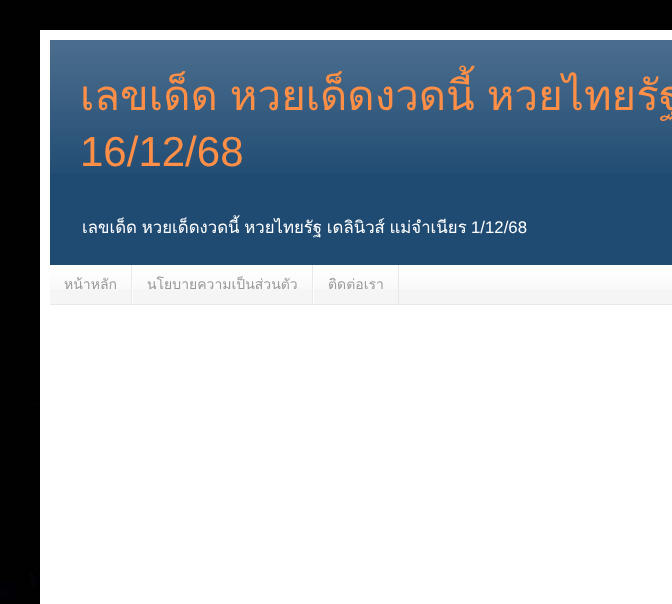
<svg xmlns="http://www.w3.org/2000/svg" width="672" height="604">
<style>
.a{font:42px Loma;fill:#ff8f46}
.b{font:42px Liberation Sans;fill:#ff8f46}
.c{font:16.8px Loma;fill:#fff}
.d{font:16.8px Liberation Sans;fill:#fff}
.e{font:14px Loma;fill:#999}
</style>
<rect width="100%" height="100%" fill="#fff"/>
<image href="1.png" x="0" y="0" width="672" height="604"/>
<path fill="#fff" d="M40 30h632v574H40z"/>
<path fill="#1f4a72" d="M50 40h622v225H50z"/>
<image href="2.png" x="50" y="40" width="622" height="133"/>
<path fill="#f5f5f5" d="M50 266h622v38H50z"/>
<image href="3.png" x="50" y="265" width="622" height="24"/>
<path fill="#e8e8e8" d="M50 304h622v1H50z"/>
<path fill="#e8e8e8" d="M131 265h1v39H131z"/>
<path fill="#e8e8e8" d="M312 265h1v39H312z"/>
<path fill="#fff" d="M132 276h1v28H132z"/>
<path fill="#e8e8e8" d="M398 265h1v39H398z"/>
<path fill="#fff" d="M313 276h1v28H313z"/>
<text class="a" x="80" y="110" word-spacing="-2">เลขเด็ด หวยเด็ดงวดนี้ หวยไทยรัฐ</text>
<text class="b" x="80" y="166">16/12/68</text>
<text class="c" x="82" y="233" word-spacing="-1">เลขเด็ด หวยเด็ดงวดนี้ หวยไทยรัฐ เดลินิวส์ แม่จำเนียร</text>
<text class="d" x="471" y="233">1/12/68</text>
<text class="e" x="64" y="289">หน้าหลัก</text>
<text class="e" x="147" y="289">นโยบายความเป็นส่วนตัว</text>
<text class="e" x="328" y="289">ติดต่อเรา</text>
</svg>
